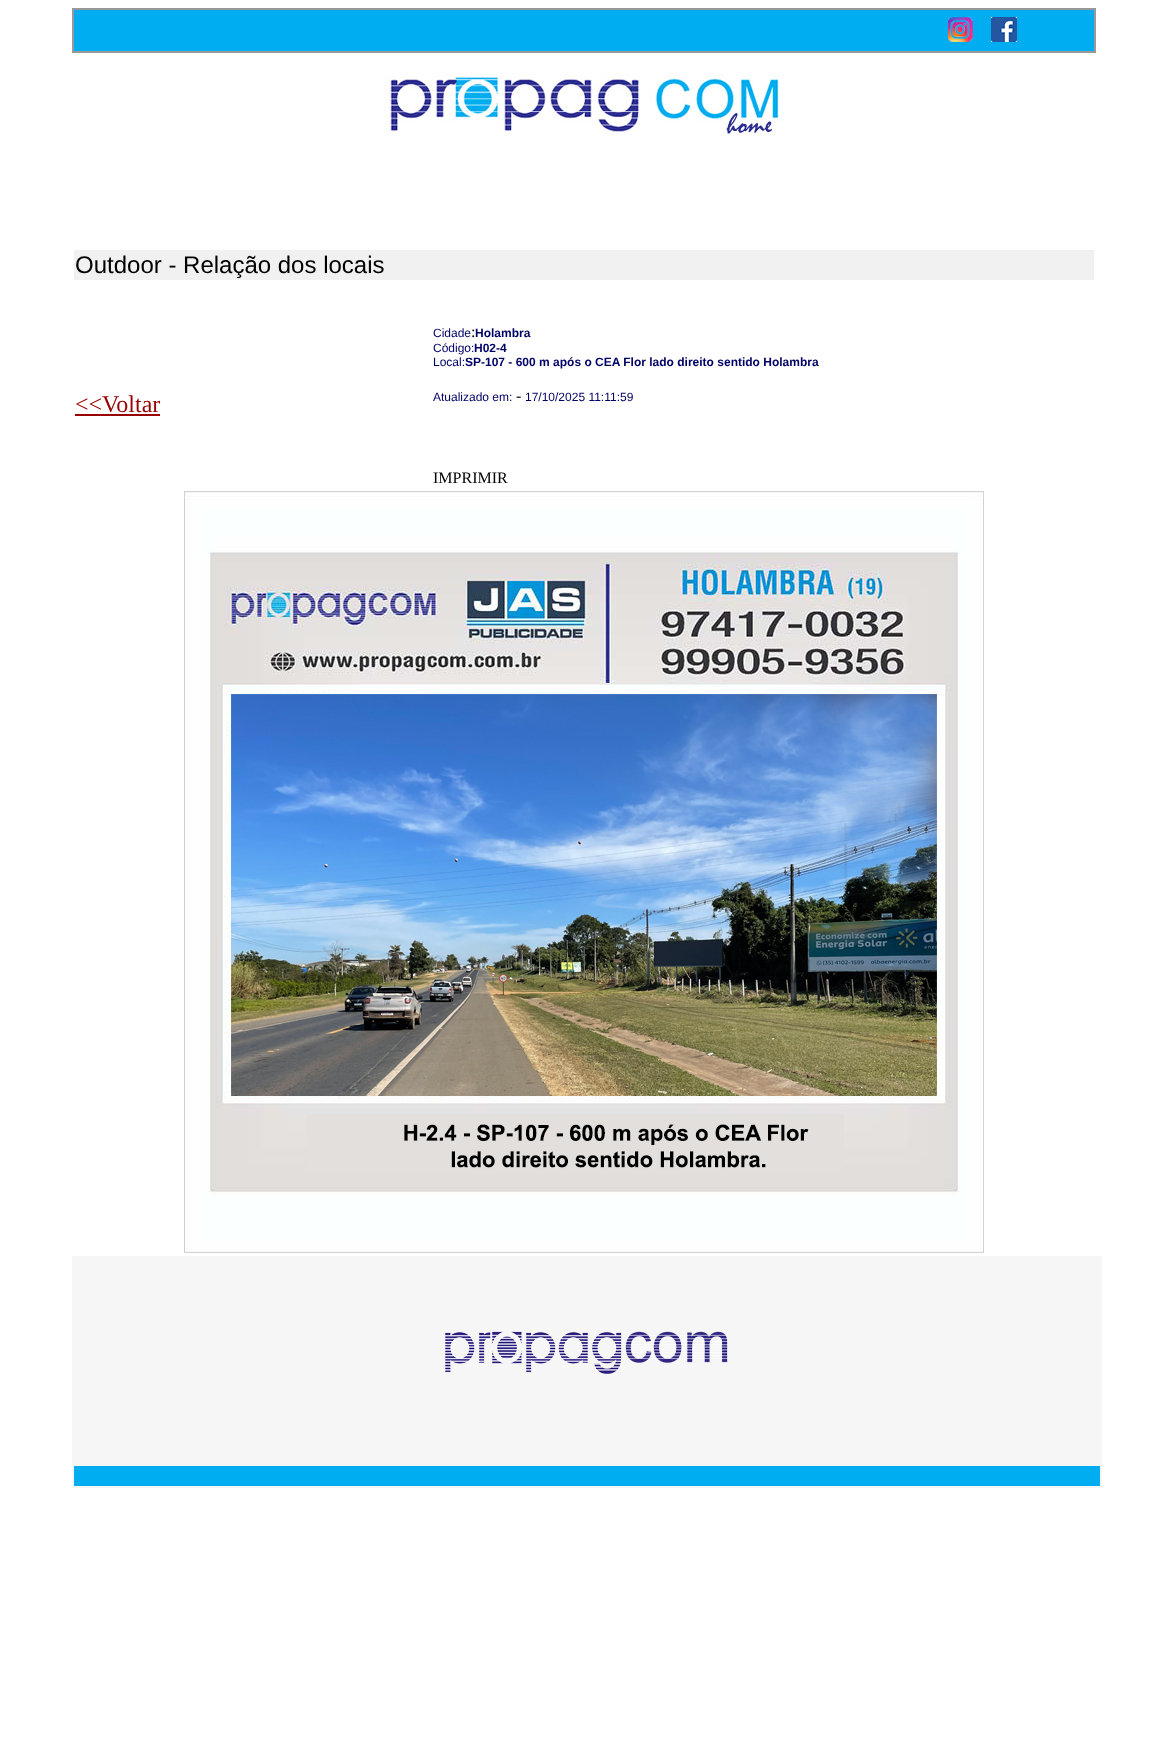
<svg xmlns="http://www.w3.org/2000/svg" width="1157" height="1756">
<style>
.a{font:24px Liberation Sans;fill:#000}
.b{font:12px Liberation Sans;fill:#006}
.c{font:16px Liberation Serif;fill:#000}
.d{font:bold 12px Liberation Sans;fill:#006}
.e{font:24px Liberation Serif;fill:#900}
</style>
<rect width="100%" height="100%" fill="#fff"/>
<path fill="#999" d="M72 8h1024v45H72z"/>
<path fill="#00adf0" d="M74 10h1020v41H74z"/>
<image href="1.png" x="948" y="17" width="69" height="25"/>
<image href="2.png" x="385" y="74" width="398" height="63"/>
<path fill="#f1f1f1" d="M74 250h1020v30H74z"/>
<path fill="#900" d="M75 414h85v2H75z"/>
<image href="3.png" x="184" y="491" width="800" height="762"/>
<path fill="#f6f6f6" d="M72 1256h1030v232H72z"/>
<image href="4.png" x="445" y="1331" width="284" height="43"/>
<path fill="#00adf0" d="M74 1466h1026v20H74z"/>
<text class="a" x="75" y="273">Outdoor - Relação dos locais</text>
<text class="b" x="433" y="337">Cidade</text>
<text class="c" x="471" y="337">:</text>
<text class="d" x="475" y="337">Holambra</text>
<text class="b" x="433" y="352">Código:</text>
<text class="d" x="474" y="352">H02-4</text>
<text class="b" x="433" y="366">Local:</text>
<text class="d" x="465" y="366">SP-107 - 600 m após o CEA Flor lado direito sentido Holambra</text>
<text class="b" x="433" y="401">Atualizado em:</text>
<text class="c" x="516" y="401">-</text>
<text class="b" x="525" y="401">17/10/2025 11:11:59</text>
<text class="e" x="75" y="412">&lt;&lt;Voltar</text>
<text class="c" x="433" y="483">IMPRIMIR</text>
</svg>
